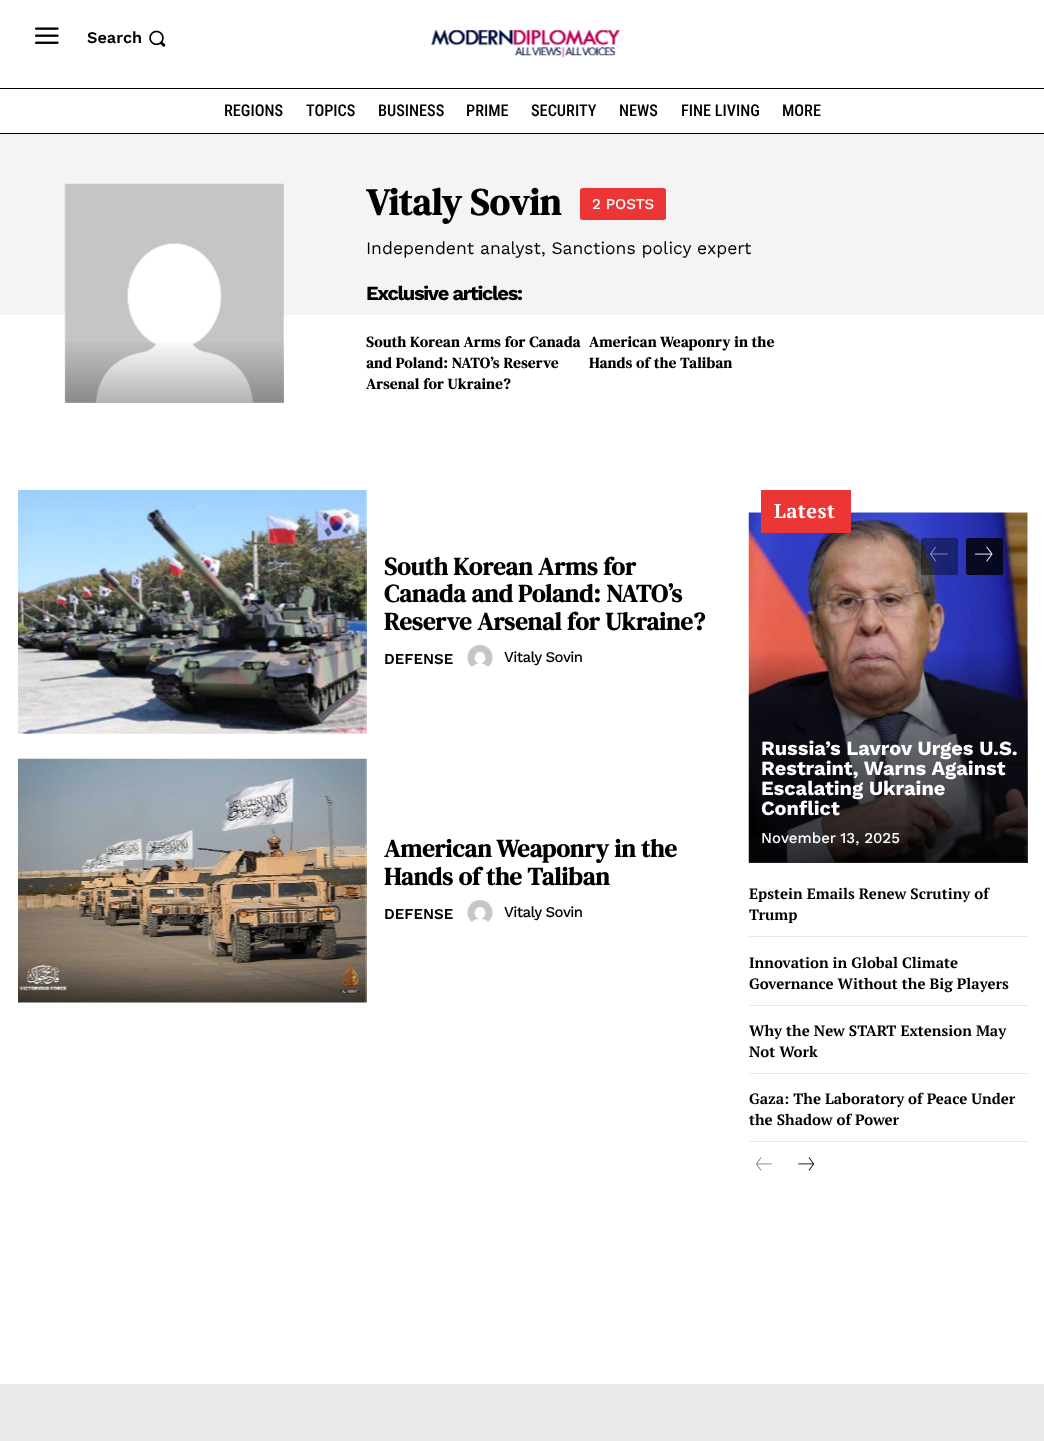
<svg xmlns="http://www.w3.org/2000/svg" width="1044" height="1441">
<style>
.a{font:600 16.25px Work Sans;fill:#000}
.b{font:500 16.25px Roboto Condensed;fill:#000}
.c{font:bold 37.5px DM Serif Text;fill:#000}
.d{font:500 15px Work Sans;fill:#fff}
.e{font:17.5px Work Sans;fill:#000}
.f{font:bold 20px Work Sans;letter-spacing:-1.25px;fill:#000}
.g{font:bold 15px DM Serif Text;letter-spacing:0.4px;fill:#000}
.h{font:bold 25px DM Serif Text;fill:#000}
.i{font:600 15px Work Sans;fill:#000}
.j{font:500 15px Work Sans;letter-spacing:-0.6px;fill:#000}
.k{font:bold 20px PT Serif;letter-spacing:0.5px;fill:#fff}
.l{font:bold 20px Work Sans;fill:#fff}
.m{font:bold 15px PT Serif;fill:#000}
</style>
<defs>
<linearGradient id="g1" gradientUnits="userSpaceOnUse" x1="174" y1="403" x2="174" y2="184"><stop offset="0" stop-color="#000" stop-opacity="0.3"/><stop offset="0.3" stop-color="#000" stop-opacity="0"/><stop offset="1" stop-color="#000" stop-opacity="0"/></linearGradient>
<linearGradient id="g2" gradientUnits="userSpaceOnUse" x1="888" y1="863" x2="888" y2="513"><stop offset="0" stop-color="#000" stop-opacity="0.8"/><stop offset="0.42" stop-color="#000" stop-opacity="0.5"/><stop offset="0.61" stop-color="#000" stop-opacity="0"/><stop offset="1" stop-color="#000" stop-opacity="0"/></linearGradient>
</defs>
<rect width="100%" height="100%" fill="#fff"/>
<image href="1.png" x="35" y="27" width="24" height="17"/>
<image href="2.png" x="149" y="30" width="17" height="17"/>
<image href="3.png" x="431" y="29" width="189" height="29"/>
<path fill="#000" d="M0 88h1044v1H0z"/>
<path fill="#000" d="M0 133h1044v1H0z"/>
<path fill="#f4f4f4" d="M0 134h1044v181H0z"/>
<image href="4.png" x="64" y="183" width="220" height="220"/>
<path fill="url(#g1)" d="M65 342h219v61H65z"/>
<rect fill="#ec3535" x="580" y="188" width="86" height="32" rx="2.5"/>
<image href="5.png" x="18" y="490" width="349" height="244"/>
<image href="6.png" x="467" y="645" width="26" height="22"/>
<image href="7.png" x="18" y="758" width="349" height="245"/>
<image href="6.png" x="467" y="900" width="26" height="22"/>
<image href="10.png" x="748" y="512" width="280" height="351"/>
<path fill="#ec3535" d="M761 490h90v43H761z"/>
<rect fill="#00000066" x="921" y="538" width="37" height="37" rx="2.5"/>
<image href="8.png" x="930" y="546" width="18" height="16"/>
<rect fill="#000000cc" x="966" y="538" width="37" height="37" rx="2.5"/>
<image href="9.png" x="974" y="546" width="19" height="16"/>
<path fill="url(#g2)" d="M749 652h279v211H749z"/>
<path fill="#eaeaea" d="M749 936h279v1H749z"/>
<path fill="#eaeaea" d="M749 1005h279v1H749z"/>
<path fill="#eaeaea" d="M749 1073h279v1H749z"/>
<path fill="#eaeaea" d="M749 1141h279v1H749z"/>
<image href="11.png" x="756" y="1157" width="16" height="14"/>
<image href="12.png" x="798" y="1157" width="17" height="14"/>
<path fill="#eaeaea" d="M0 1384h1044v57H0z"/>
<text class="a" x="87" y="43">Search</text>
<text class="b" x="224" y="116">REGIONS</text>
<text class="b" x="306" y="116">TOPICS</text>
<text class="b" x="378" y="116">BUSINESS</text>
<text class="b" x="466" y="116">PRIME</text>
<text class="b" x="531" y="116">SECURITY</text>
<text class="b" x="619" y="116">NEWS</text>
<text class="b" x="681" y="116">FINE LIVING</text>
<text class="b" x="782" y="116">MORE</text>
<text class="c" x="366" y="215">Vitaly Sovin</text>
<text class="d" x="592" y="209">2 POSTS</text>
<text class="e" x="366" y="254">Independent analyst, Sanctions policy expert</text>
<text class="f" x="366" y="300">Exclusive articles:</text>
<text class="g" x="366" y="347">South Korean Arms for Canada</text>
<text class="g" x="366" y="368">and Poland: NATO’s Reserve</text>
<text class="g" x="366" y="389">Arsenal for Ukraine?</text>
<text class="g" x="589" y="347">American Weaponry in the</text>
<text class="g" x="589" y="368">Hands of the Taliban</text>
<text class="h" x="384" y="575">South Korean Arms for</text>
<text class="h" x="384" y="602">Canada and Poland: NATO’s</text>
<text class="h" x="384" y="630">Reserve Arsenal for Ukraine?</text>
<text class="i" x="384" y="664">DEFENSE</text>
<text class="j" x="504" y="662">Vitaly Sovin</text>
<text class="h" x="384" y="857">American Weaponry in the</text>
<text class="h" x="384" y="885">Hands of the Taliban</text>
<text class="i" x="384" y="919">DEFENSE</text>
<text class="j" x="504" y="917">Vitaly Sovin</text>
<text class="k" x="774" y="518">Latest</text>
<text class="l" x="761" y="755">Russia’s Lavrov Urges U.S.</text>
<text class="l" x="761" y="775">Restraint, Warns Against</text>
<text class="l" x="761" y="795">Escalating Ukraine</text>
<text class="l" x="761" y="815">Conflict</text>
<text class="d" x="761" y="843">November 13, 2025</text>
<text class="m" x="749" y="899">Epstein Emails Renew Scrutiny of</text>
<text class="m" x="749" y="920">Trump</text>
<text class="m" x="749" y="968">Innovation in Global Climate</text>
<text class="m" x="749" y="989">Governance Without the Big Players</text>
<text class="m" x="749" y="1036">Why the New START Extension May</text>
<text class="m" x="749" y="1057">Not Work</text>
<text class="m" x="749" y="1104">Gaza: The Laboratory of Peace Under</text>
<text class="m" x="749" y="1125">the Shadow of Power</text>
</svg>
